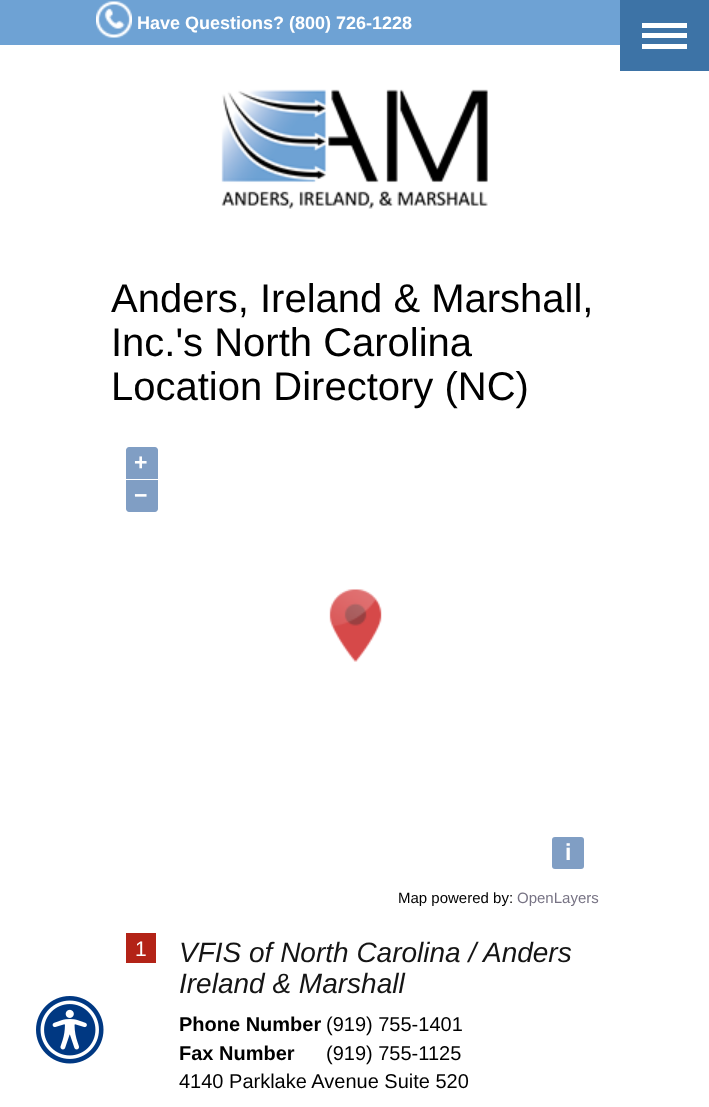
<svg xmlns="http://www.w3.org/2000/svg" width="709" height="1107">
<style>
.a{font:bold 18px Liberation Sans;fill:#fff}
.b{font:40px Liberation Sans;fill:#000}
.c{font:bold 23px Liberation Sans;fill:#fff}
.d{font:15px Liberation Sans;fill:#000}
.e{font:15px Liberation Sans;fill:#777384}
.f{font:21px Liberation Sans;fill:#fff}
.g{font:italic 28px Liberation Sans;fill:#151515}
.h{font:bold 20px Liberation Sans;fill:#000}
.i{font:20px Liberation Sans;fill:#000}
</style>
<rect width="100%" height="100%" fill="#fff"/>
<image href="1.png" x="36" y="996" width="68" height="68"/>
<path fill="#6ea2d4" d="M0 0h620v45H0z"/>
<image href="2.png" x="96" y="1" width="36" height="37"/>
<path fill="#3d73a6" d="M620 0h89v71H620z"/>
<path fill="#fff" d="M642 23h45v5H642z"/>
<path fill="#fff" d="M642 33h45v5H642z"/>
<path fill="#fff" d="M642 44h45v5H642z"/>
<image href="3.png" x="221" y="89" width="267" height="120"/>
<path fill="#809ec4" d="M129 447h26c1.5 0 3 1.5 3 3v29h-32v-29c0-1.5 1.5-3 3-3z"/>
<path fill="#809ec4" d="M126 480h32v29c0 1.5-1.5 3-3 3h-26c-1.5 0-3-1.5-3-3z"/>
<rect fill="#809ec4" x="552" y="837" width="32" height="32" rx="3"/>
<image href="4.png" x="329" y="589" width="53" height="73"/>
<path fill="#b32317" d="M126 933h30v30H126z"/>
<text class="a" x="137" y="29">Have Questions? (800) 726-1228</text>
<text class="b" x="111" y="312">Anders, Ireland &amp; Marshall,</text>
<text class="b" x="111" y="356">Inc.'s North Carolina</text>
<text class="b" x="111" y="400">Location Directory (NC)</text>
<text class="c" x="134" y="470">+</text>
<text class="c" x="134" y="503">−</text>
<text class="c" x="565" y="860">i</text>
<text class="d" x="398" y="903">Map powered by:</text>
<text class="e" x="517" y="903">OpenLayers</text>
<text class="f" x="135" y="956">1</text>
<text class="g" x="179" y="962">VFIS of North Carolina / Anders</text>
<text class="g" x="179" y="993">Ireland &amp; Marshall</text>
<text class="h" x="179" y="1031">Phone Number</text>
<text class="i" x="326" y="1031">(919) 755-1401</text>
<text class="h" x="179" y="1060">Fax Number</text>
<text class="i" x="326" y="1060">(919) 755-1125</text>
<text class="i" x="179" y="1088">4140 Parklake Avenue Suite 520</text>
</svg>
